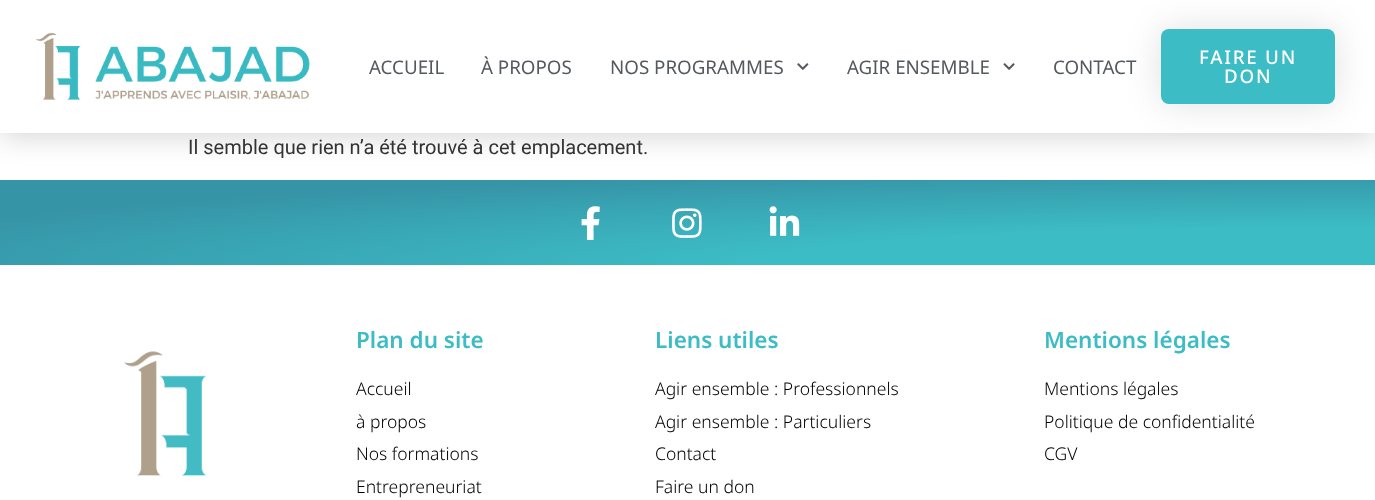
<svg xmlns="http://www.w3.org/2000/svg" width="1375" height="500">
<style>
.a{font:18.75px Noto Sans;fill:#54595f}
.b{font:500 18.75px Noto Sans;letter-spacing:1.75px;fill:#fff}
.c{font:20px Roboto;fill:#333}
.d{font:600 22.5px Noto Sans;fill:#3cbcc4}
.e{font:300 17.5px Noto Sans;fill:#000}
</style>
<defs>
<radialGradient id="g1" gradientUnits="userSpaceOnUse" cx="0" cy="0" r="1" gradientTransform="matrix(1945 0 0 120 1375 265)"><stop offset="0.32" stop-color="#3cbcc4"/><stop offset="0.81" stop-color="#3694a7"/></radialGradient>
</defs>
<rect width="100%" height="100%" fill="#fff"/>
<path fill="url(#g1)" d="M0 180h1375v85H0z"/>
<path fill="#0000002e" filter="blur(15px)" d="M0 3h1375v132H0z"/>
<path fill="#fff" d="M0 0h1375v133H0z"/>
<image href="1.png" x="36" y="32" width="274" height="68"/>
<image href="2.png" x="797" y="63" width="12" height="7"/>
<image href="3.png" x="1003" y="63" width="12" height="7"/>
<rect fill="#0000001f" filter="blur(17px)" x="1161" y="29" width="174" height="75" rx="8"/>
<rect fill="#3cbcc4" x="1161" y="29" width="174" height="75" rx="8"/>
<image href="4.png" x="581" y="206" width="19" height="34"/>
<image href="5.png" x="672" y="208" width="30" height="30"/>
<image href="6.png" x="769" y="206" width="31" height="30"/>
<image href="7.png" x="124" y="351" width="82" height="125"/>
<text class="a" x="369" y="74">ACCUEIL</text>
<text class="a" x="481" y="74">À PROPOS</text>
<text class="a" x="610" y="74">NOS PROGRAMMES</text>
<text class="a" x="847" y="74">AGIR ENSEMBLE</text>
<text class="a" x="1053" y="74">CONTACT</text>
<text class="b" x="1199" y="64">FAIRE UN</text>
<text class="b" x="1224" y="83">DON</text>
<text class="c" x="188" y="154">Il semble que rien n’a été trouvé à cet emplacement.</text>
<text class="d" x="356" y="348">Plan du site</text>
<text class="e" x="356" y="395">Accueil</text>
<text class="e" x="356" y="428">à propos</text>
<text class="e" x="356" y="460">Nos formations</text>
<text class="e" x="356" y="493">Entrepreneuriat</text>
<text class="d" x="655" y="348">Liens utiles</text>
<text class="e" x="655" y="395">Agir ensemble : Professionnels</text>
<text class="e" x="655" y="428">Agir ensemble : Particuliers</text>
<text class="e" x="655" y="460">Contact</text>
<text class="e" x="655" y="493">Faire un don</text>
<text class="d" x="1044" y="348">Mentions légales</text>
<text class="e" x="1044" y="395">Mentions légales</text>
<text class="e" x="1044" y="428">Politique de confidentialité</text>
<text class="e" x="1044" y="460">CGV</text>
</svg>
